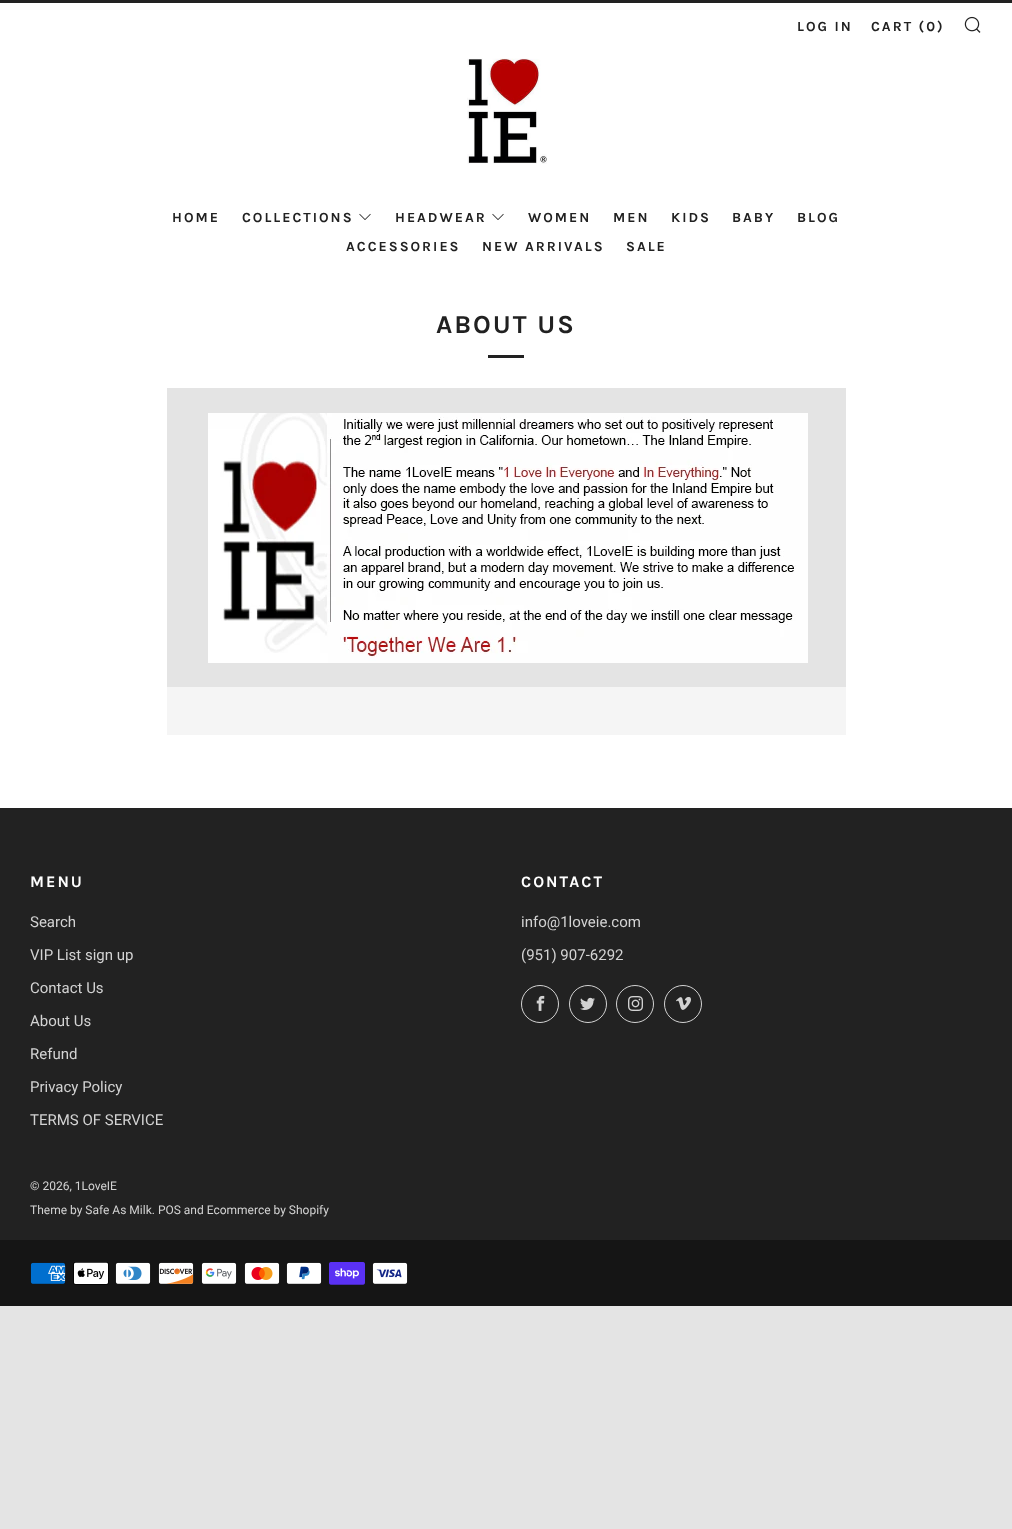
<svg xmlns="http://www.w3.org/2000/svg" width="1012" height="1529">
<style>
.a{font:bold 14px Karla;letter-spacing:2px;fill:#212121}
.b{font:bold 26px Karla;letter-spacing:2px;fill:#212121}
.c{font:bold 16px Karla;letter-spacing:2px;fill:#fff}
.d{font:15px Roboto;fill:#d3d3d3}
.e{font:12px Roboto;fill:#d3d3d3}
</style>
<rect width="100%" height="100%" fill="#e4e4e4"/>
<path fill="#fff" d="M0 3h1012v805H0z"/>
<path fill="#212121" d="M0 0h1012v3H0z"/>
<image href="1.png" x="964" y="16" width="17" height="17"/>
<image href="2.png" x="359" y="213" width="12" height="7"/>
<image href="2.png" x="492" y="213" width="12" height="7"/>
<image href="3.png" x="467" y="58" width="80" height="106"/>
<path fill="#212121" d="M488 355h36v3H488z"/>
<path fill="#e4e4e4" d="M167 388h679v299H167z"/>
<image href="4.png" x="208" y="413" width="600" height="250"/>
<path fill="#f5f5f5" d="M167 687h679v48H167z"/>
<path fill="#222" d="M0 808h1012v432H0z"/>
<circle fill="none" stroke="#d3d3d3" cx="540" cy="1004" r="18.5"/>
<image href="5.png" x="536" y="995" width="9" height="16"/>
<circle fill="none" stroke="#d3d3d3" cx="588" cy="1004" r="18.5"/>
<image href="6.png" x="580" y="997" width="15" height="13"/>
<circle fill="none" stroke="#d3d3d3" cx="635" cy="1004" r="18.5"/>
<image href="7.png" x="628" y="996" width="15" height="15"/>
<circle fill="none" stroke="#d3d3d3" cx="683" cy="1004" r="18.5"/>
<image href="8.png" x="676" y="997" width="15" height="13"/>
<path fill="#151515" d="M0 1240h1012v66H0z"/>
<image href="9.png" x="30" y="1262" width="36" height="22"/>
<image href="10.png" x="73" y="1262" width="36" height="23"/>
<image href="11.png" x="115" y="1262" width="36" height="22"/>
<image href="12.png" x="158" y="1262" width="36" height="22"/>
<image href="13.png" x="201" y="1262" width="36" height="22"/>
<image href="14.png" x="244" y="1262" width="36" height="22"/>
<image href="15.png" x="286" y="1262" width="36" height="22"/>
<image href="16.png" x="329" y="1262" width="36" height="23"/>
<image href="17.png" x="372" y="1262" width="36" height="22"/>
<text class="a" x="797" y="31">LOG IN</text>
<text class="a" x="871" y="31">CART (0)</text>
<text class="a" x="172" y="222">HOME</text>
<text class="a" x="242" y="222">COLLECTIONS</text>
<text class="a" x="395" y="222">HEADWEAR</text>
<text class="a" x="528" y="222">WOMEN</text>
<text class="a" x="613" y="222">MEN</text>
<text class="a" x="671" y="222">KIDS</text>
<text class="a" x="732" y="222">BABY</text>
<text class="a" x="797" y="222">BLOG</text>
<text class="a" x="346" y="251">ACCESSORIES</text>
<text class="a" x="482" y="251">NEW ARRIVALS</text>
<text class="a" x="626" y="251">SALE</text>
<text class="b" x="436" y="333">ABOUT US</text>
<text class="c" x="30" y="887">MENU</text>
<text class="d" x="30" y="927">Search</text>
<text class="d" x="30" y="960">VIP List sign up</text>
<text class="d" x="30" y="993">Contact Us</text>
<text class="d" x="30" y="1026">About Us</text>
<text class="d" x="30" y="1059">Refund</text>
<text class="d" x="30" y="1092">Privacy Policy</text>
<text class="d" x="30" y="1125">TERMS OF SERVICE</text>
<text class="c" x="521" y="887">CONTACT</text>
<text class="d" x="521" y="927">info@1loveie.com</text>
<text class="d" x="521" y="960">(951) 907-6292</text>
<text class="e" x="30" y="1190">© 2026, 1LoveIE</text>
<text class="e" x="30" y="1214">Theme by Safe As Milk. POS and Ecommerce by Shopify</text>
</svg>
